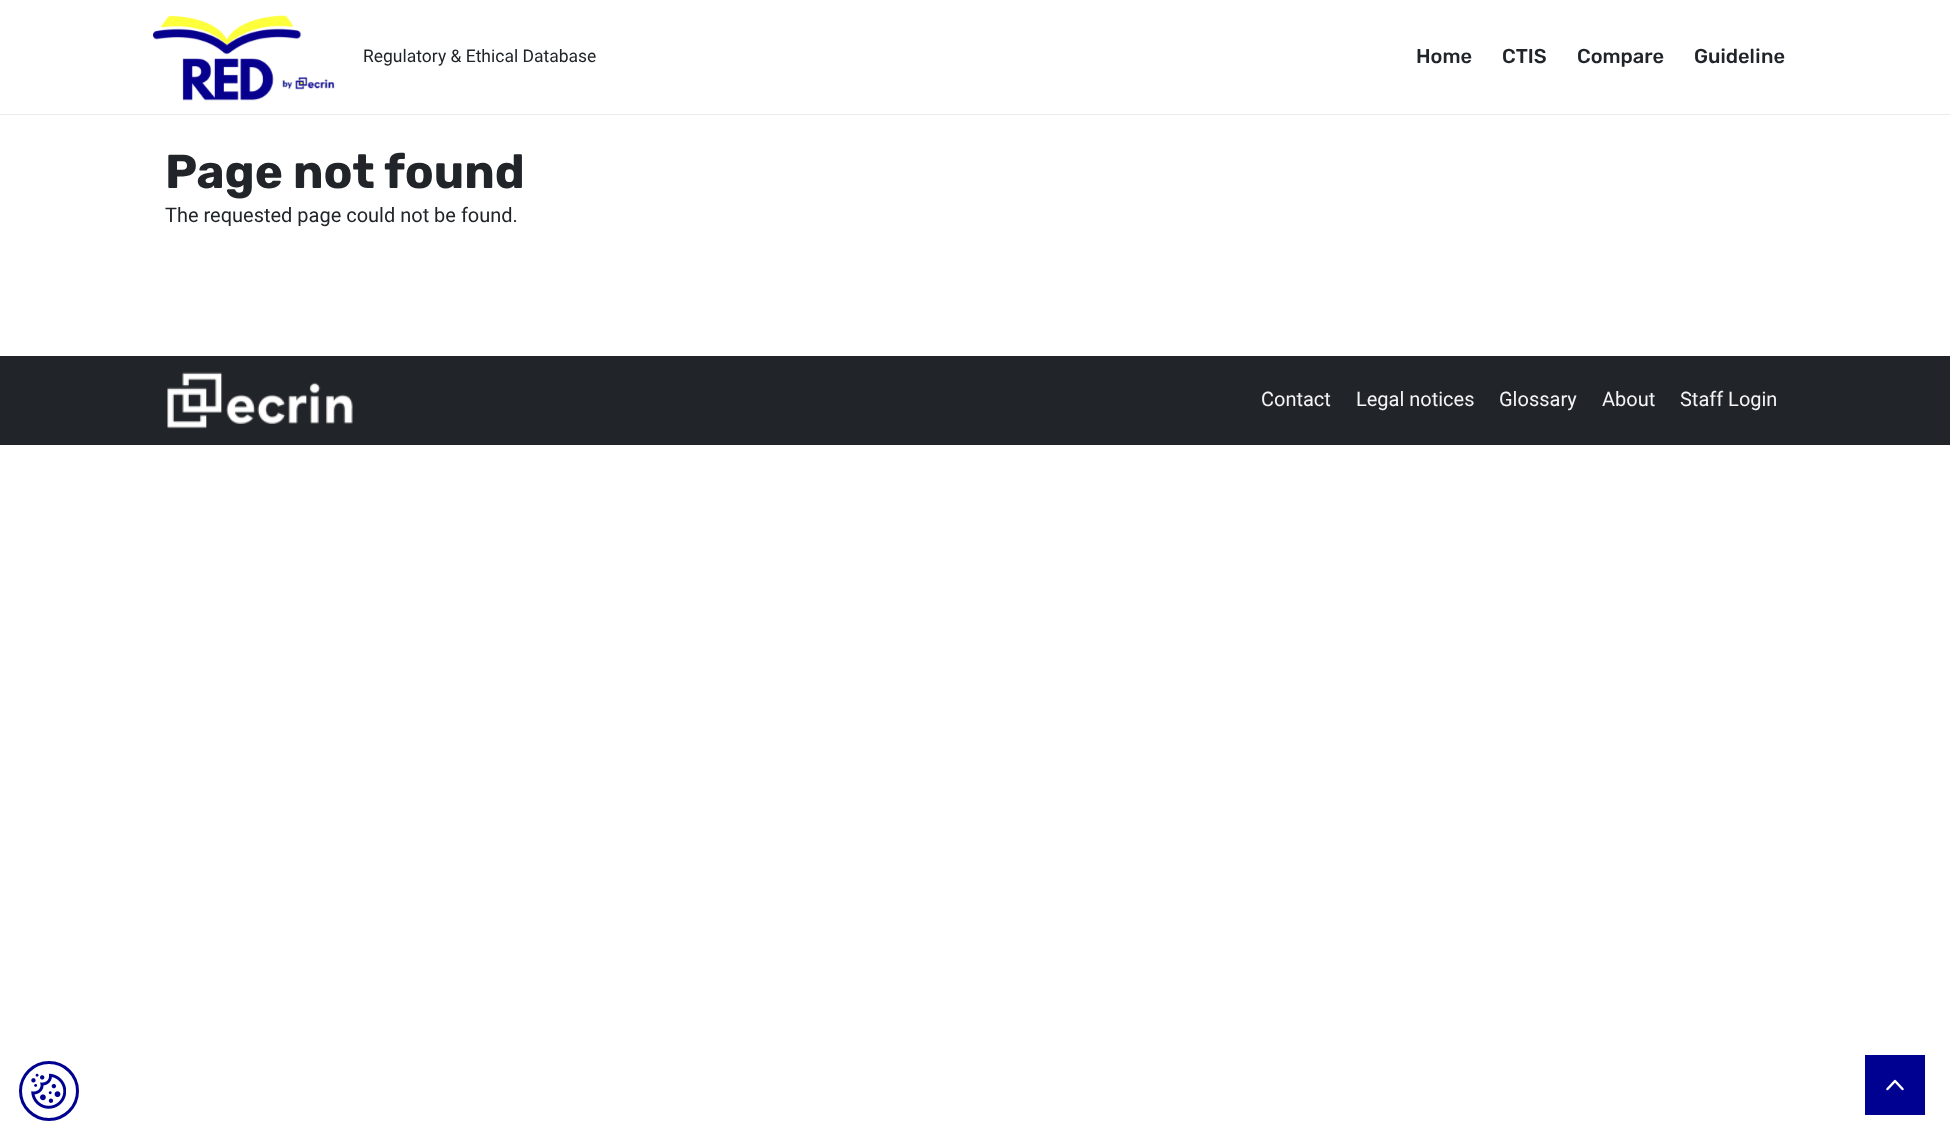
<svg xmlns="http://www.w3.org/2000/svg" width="1950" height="1140">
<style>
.a{font:17.5px Roboto;fill:#212529}
.b{font:300 20px 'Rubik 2';fill:#212529}
.c{font:300 47.5px Rubik;fill:#212529}
.d{font:20px Roboto;fill:#212529}
.e{font:20px Roboto;fill:#f3f4f5}
</style>
<rect width="100%" height="100%" fill="#fff"/>
<path fill="#e9ecef" d="M0 114h1950v1H0z"/>
<image href="1.png" x="152" y="15" width="183" height="86"/>
<path fill="#212529" d="M0 356h1950v89H0z"/>
<image href="2.png" x="167" y="372" width="186" height="57"/>
<circle fill="none" stroke="#000091" stroke-width="3" cx="49" cy="1091" r="28.5"/>
<image href="3.png" x="31" y="1073" width="35" height="36"/>
<path fill="#000091" d="M1865 1055h60v60H1865z"/>
<path fill="none" stroke="#fff" stroke-width="2.5" stroke-linecap="round" stroke-linejoin="round" d="M1902.5 1089l-7.5-8l-7.5 8"/>
<text class="a" x="363" y="62">Regulatory &amp; Ethical Database</text>
<text class="b" x="1416" y="63">Home</text>
<text class="b" x="1502" y="63">CTIS</text>
<text class="b" x="1577" y="63">Compare</text>
<text class="b" x="1694" y="63">Guideline</text>
<text class="c" x="165" y="188">Page not found</text>
<text class="d" x="165" y="222">The requested page could not be found.</text>
<text class="e" x="1261" y="406">Contact</text>
<text class="e" x="1356" y="406">Legal notices</text>
<text class="e" x="1499" y="406">Glossary</text>
<text class="e" x="1602" y="406">About</text>
<text class="e" x="1680" y="406">Staff Login</text>
</svg>
